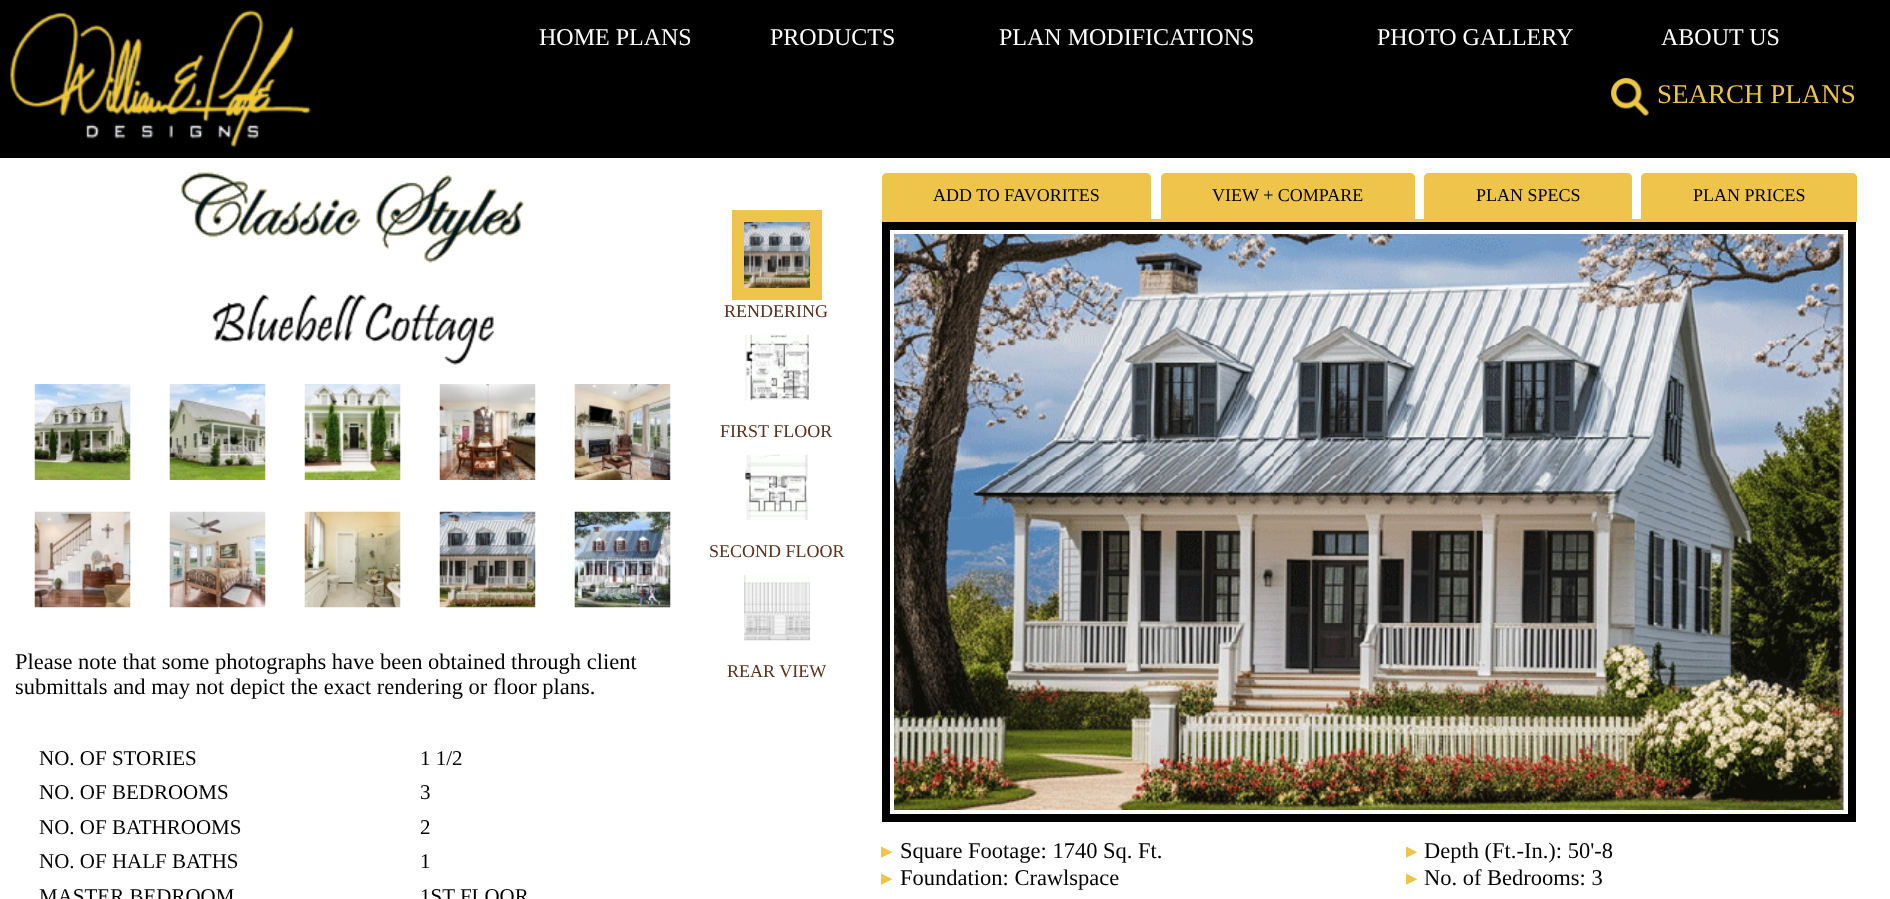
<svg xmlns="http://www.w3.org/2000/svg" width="1890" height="899">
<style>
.a{font:24px Liberation Serif;fill:#fff}
.b{font:27px Liberation Serif;fill:#efc44b}
.c{font:18px Liberation Serif;fill:#59311c}
.d{font:18px Liberation Serif;fill:#000}
.e{font:22.5px DejaVu Sans;fill:#efc44b}
.f{font:22.5px Liberation Serif;fill:#000}
.g{font:21px Liberation Serif;fill:#000}
</style>
<rect width="100%" height="100%" fill="#000"/>
<image href="1.png" x="10" y="10" width="301" height="137"/>
<image href="2.png" x="1611" y="78" width="38" height="38"/>
<path fill="#fff" d="M0 158h1890v741H0z"/>
<path fill="none" stroke="#efc44b" stroke-width="12" d="M738 216h78v78h-78z"/>
<image href="3.png" x="744" y="222" width="66" height="66"/>
<image href="4.png" x="745" y="334" width="64" height="67"/>
<image href="5.png" x="745" y="454" width="63" height="67"/>
<image href="6.png" x="744" y="574" width="66" height="67"/>
<path fill="#efc44b" d="M882 219h975v3H882z"/>
<path fill="#efc44b" d="M887 173h259c3 0 5 2 5 5v41h-269v-41c0-3 2-5 5-5z"/>
<path fill="#efc44b" d="M1166 173h244c3 0 5 2 5 5v41h-254v-41c0-3 2-5 5-5z"/>
<path fill="#efc44b" d="M1429 173h198c3 0 5 2 5 5v41h-208v-41c0-3 2-5 5-5z"/>
<path fill="#efc44b" d="M1646 173h206c3 0 5 2 5 5v41h-216v-41c0-3 2-5 5-5z"/>
<path fill="none" stroke="#000" stroke-width="8" d="M886 226h966v592H886z"/>
<image href="7.png" x="894" y="234" width="950" height="576"/>
<image href="8.png" x="181" y="172" width="343" height="91"/>
<image href="9.png" x="212" y="294" width="155" height="49"/>
<image href="10.png" x="365" y="302" width="130" height="63"/>
<image href="11.png" x="34" y="384" width="97" height="96"/>
<image href="12.png" x="169" y="384" width="97" height="96"/>
<image href="13.png" x="304" y="384" width="97" height="96"/>
<image href="14.png" x="439" y="384" width="97" height="96"/>
<image href="15.png" x="574" y="384" width="97" height="96"/>
<image href="16.png" x="34" y="511" width="97" height="97"/>
<image href="17.png" x="169" y="511" width="97" height="97"/>
<image href="18.png" x="304" y="511" width="97" height="97"/>
<image href="19.png" x="439" y="511" width="97" height="97"/>
<image href="20.png" x="574" y="511" width="97" height="97"/>
<text class="a" x="539" y="45">HOME PLANS</text>
<text class="a" x="770" y="45">PRODUCTS</text>
<text class="a" x="999" y="45">PLAN MODIFICATIONS</text>
<text class="a" x="1377" y="45">PHOTO GALLERY</text>
<text class="a" x="1661" y="45">ABOUT US</text>
<text class="b" x="1657" y="103">SEARCH PLANS</text>
<text class="c" x="724" y="317">RENDERING</text>
<text class="c" x="720" y="437">FIRST FLOOR</text>
<text class="c" x="709" y="557">SECOND FLOOR</text>
<text class="c" x="727" y="677">REAR VIEW</text>
<text class="d" x="933" y="201">ADD TO FAVORITES</text>
<text class="d" x="1212" y="201">VIEW + COMPARE</text>
<text class="d" x="1476" y="201">PLAN SPECS</text>
<text class="d" x="1693" y="201">PLAN PRICES</text>
<text class="e" x="881" y="858">▸</text>
<text class="f" x="900" y="858">Square Footage: 1740 Sq. Ft.</text>
<text class="e" x="881" y="885">▸</text>
<text class="f" x="900" y="885">Foundation: Crawlspace</text>
<text class="e" x="1406" y="858">▸</text>
<text class="f" x="1424" y="858">Depth (Ft.-In.): 50'-8</text>
<text class="e" x="1406" y="885">▸</text>
<text class="f" x="1424" y="885">No. of Bedrooms: 3</text>
<text class="f" x="15" y="669">Please note that some photographs have been obtained through client</text>
<text class="f" x="15" y="694">submittals and may not depict the exact rendering or floor plans.</text>
<text class="g" x="39" y="765">NO. OF STORIES</text>
<text class="g" x="420" y="765">1 1/2</text>
<text class="g" x="39" y="799">NO. OF BEDROOMS</text>
<text class="g" x="420" y="799">3</text>
<text class="g" x="39" y="834">NO. OF BATHROOMS</text>
<text class="g" x="420" y="834">2</text>
<text class="g" x="39" y="868">NO. OF HALF BATHS</text>
<text class="g" x="420" y="868">1</text>
<text class="g" x="39" y="903">MASTER BEDROOM</text>
<text class="g" x="420" y="903">1ST FLOOR</text>
</svg>
